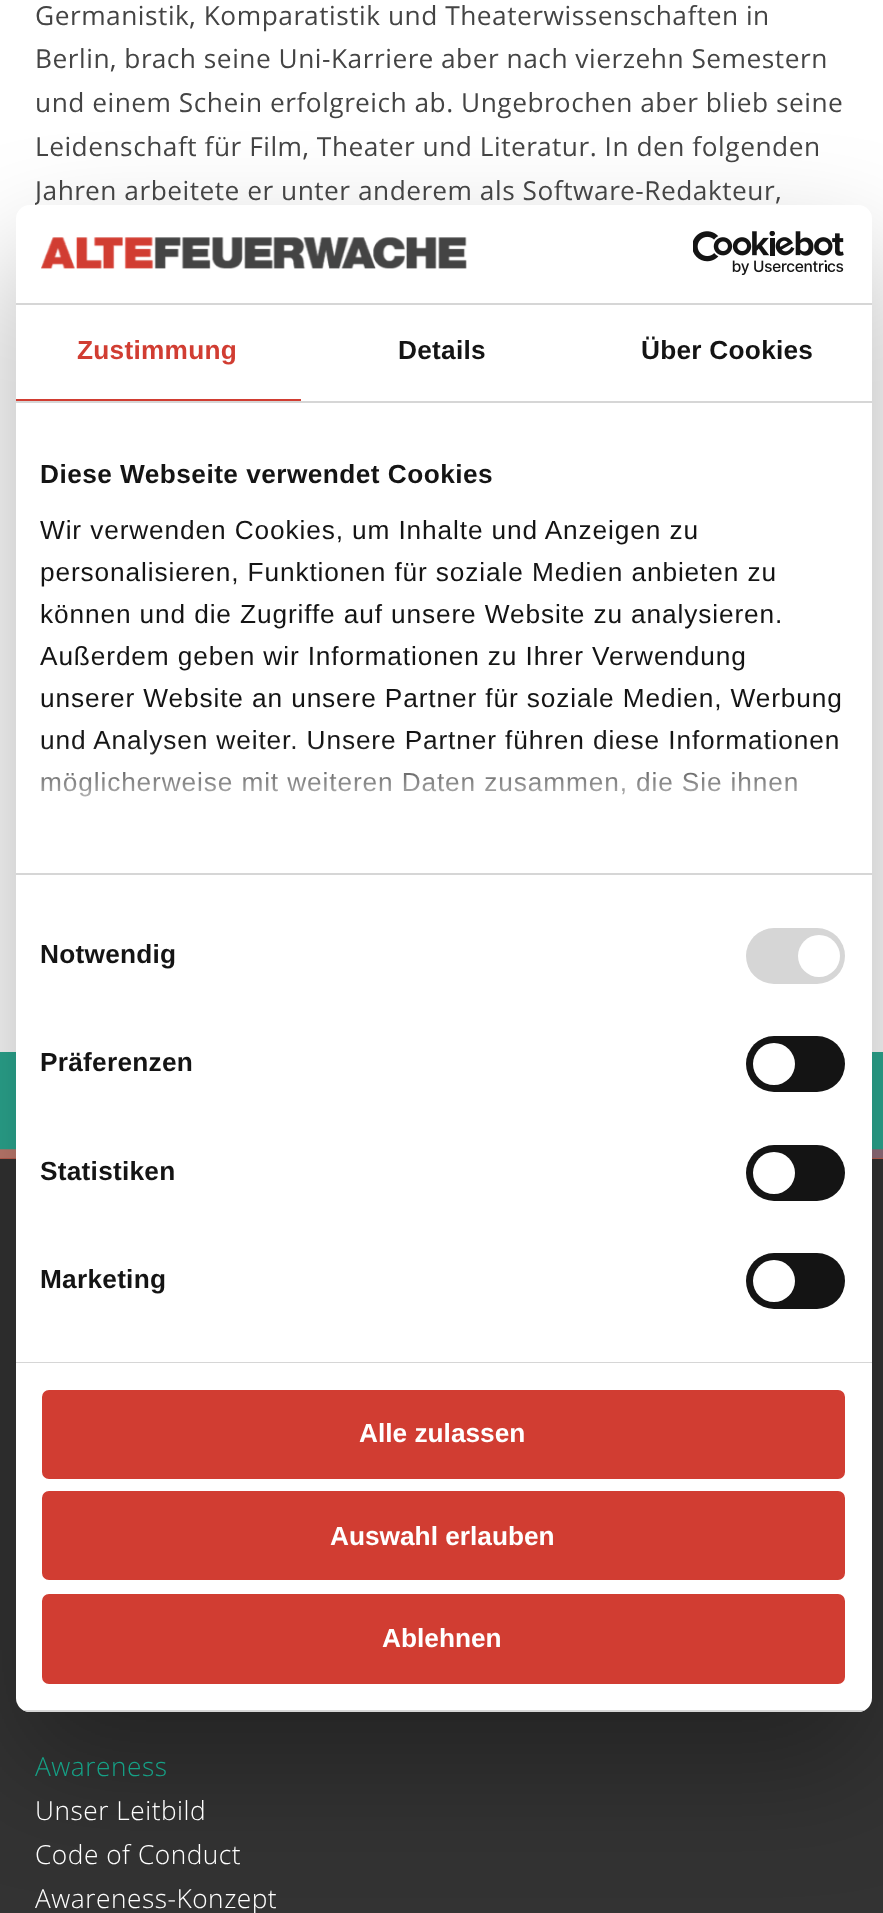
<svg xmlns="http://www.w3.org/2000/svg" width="883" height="1913">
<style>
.a{font:26.25px Open Sans;letter-spacing:0.53px;fill:#444}
.b{font:bold 26.25px Liberation Sans;letter-spacing:0.25px;fill:#d13d32}
.c{font:bold 26.25px Liberation Sans;letter-spacing:0.25px;fill:#141414}
.d{font:bold 26.25px Liberation Sans;letter-spacing:0.45px;fill:#141414}
.e{font:26.25px Liberation Sans;letter-spacing:0.88px;fill:#141414}
.f{font:bold 26.25px Liberation Sans;fill:#fff}
.g{font:300 26.25px Open Sans;letter-spacing:0.53px;fill:#15a186}
.h{font:300 26.25px Open Sans;letter-spacing:0.53px;fill:#fff}
</style>
<defs>
<clipPath id="clip1"><rect x="16" y="205" width="856" height="1507" rx="14"/></clipPath>
<clipPath id="clip2"><path d="M35 0h814v1017H35z"/></clipPath>
<linearGradient id="g1" gradientUnits="userSpaceOnUse" x1="431" y1="873" x2="431" y2="742"><stop offset="0" stop-color="#fff"/><stop offset="0.5" stop-color="#fff" stop-opacity="0.8"/><stop offset="1" stop-color="#fff" stop-opacity="0"/></linearGradient>
</defs>
<rect width="100%" height="100%" fill="#2caa92"/>
<path fill="#fff" d="M0 0h883v1052H0z"/>
<path fill="#c26252" d="M0 1158h883v1H0z"/>
<image href="3.png" x="0" y="1149" width="883" height="9"/>
<path fill="#333" d="M0 1159h883v754H0z"/>
<rect fill="#0000004d" filter="blur(59.5px)" x="16" y="261" width="856" height="1507" rx="14"/>
<rect fill="#fff" x="16" y="205" width="856" height="1507" rx="14"/>
<path fill="#d6d6d6" d="M16 303h856v2H16z"/>
<image href="1.png" x="41" y="237" width="426" height="32"/>
<image href="2.png" x="693" y="231" width="151" height="44"/>
<path fill="#d6d6d6" d="M16 401h856v2H16z"/>
<path fill="#d13d32" d="M16 399h285v2H16z"/>
<path fill="#d6d6d6" d="M16 873h856v2H16z"/>
<path fill="#d6d6d6" d="M16 1362h856v1H16z"/>
<rect fill="#d6d6d6" x="746" y="928" width="99" height="56" rx="28"/>
<circle fill="#fff" cx="819" cy="956" r="21"/>
<rect fill="#141414" x="746" y="1036" width="99" height="56" rx="28"/>
<circle fill="#fff" cx="774" cy="1064" r="21"/>
<rect fill="#141414" x="746" y="1145" width="99" height="56" rx="28"/>
<circle fill="#fff" cx="774" cy="1173" r="21"/>
<rect fill="#141414" x="746" y="1253" width="99" height="56" rx="28"/>
<circle fill="#fff" cx="774" cy="1281" r="21"/>
<g clip-path="url(#clip1)">
<path fill="#d6d6d6" d="M16 1710h856v2H16z"/>
</g>
<rect fill="#d13d32" stroke="#d13d32" stroke-width="4" x="44" y="1392" width="799" height="85" rx="5"/>
<rect fill="#d13d32" stroke="#d13d32" stroke-width="4" x="44" y="1493" width="799" height="85" rx="5"/>
<rect fill="#d13d32" stroke="#d13d32" stroke-width="4" x="44" y="1596" width="799" height="86" rx="5"/>
<text class="a" x="35" y="25">Germanistik, Komparatistik und Theaterwissenschaften in</text>
<text class="a" x="35" y="68">Berlin, brach seine Uni-Karriere aber nach vierzehn Semestern</text>
<text class="a" x="35" y="112">und einem Schein erfolgreich ab. Ungebrochen aber blieb seine</text>
<text class="a" x="35" y="156">Leidenschaft für Film, Theater und Literatur. In den folgenden</text>
<g clip-path="url(#clip2)">
<text class="a" x="35" y="200">Jahren arbeitete er unter anderem als Software-Redakteur,</text>
</g>
<text class="b" x="77" y="359">Zustimmung</text>
<text class="c" x="398" y="359">Details</text>
<text class="c" x="641" y="359">Über Cookies</text>
<text class="d" x="40" y="483">Diese Webseite verwendet Cookies</text>
<text class="e" x="40" y="539">Wir verwenden Cookies, um Inhalte und Anzeigen zu</text>
<text class="e" x="40" y="581">personalisieren, Funktionen für soziale Medien anbieten zu</text>
<text class="e" x="40" y="623">können und die Zugriffe auf unsere Website zu analysieren.</text>
<text class="e" x="40" y="665">Außerdem geben wir Informationen zu Ihrer Verwendung</text>
<text class="e" x="40" y="707">unserer Website an unsere Partner für soziale Medien, Werbung</text>
<text class="e" x="40" y="749">und Analysen weiter. Unsere Partner führen diese Informationen</text>
<text class="e" x="40" y="791">möglicherweise mit weiteren Daten zusammen, die Sie ihnen</text>
<path fill="url(#g1)" d="M42 744h796v53H42z"/>
<text class="c" x="40" y="963">Notwendig</text>
<text class="c" x="40" y="1071">Präferenzen</text>
<text class="c" x="40" y="1180">Statistiken</text>
<text class="c" x="40" y="1288">Marketing</text>
<text class="f" x="359" y="1442">Alle zulassen</text>
<text class="f" x="330" y="1545">Auswahl erlauben</text>
<text class="f" x="382" y="1647">Ablehnen</text>
<text class="g" x="35" y="1776">Awareness</text>
<text class="h" x="35" y="1820">Unser Leitbild</text>
<text class="h" x="35" y="1864">Code of Conduct</text>
<text class="h" x="35" y="1908">Awareness-Konzept</text>
</svg>
